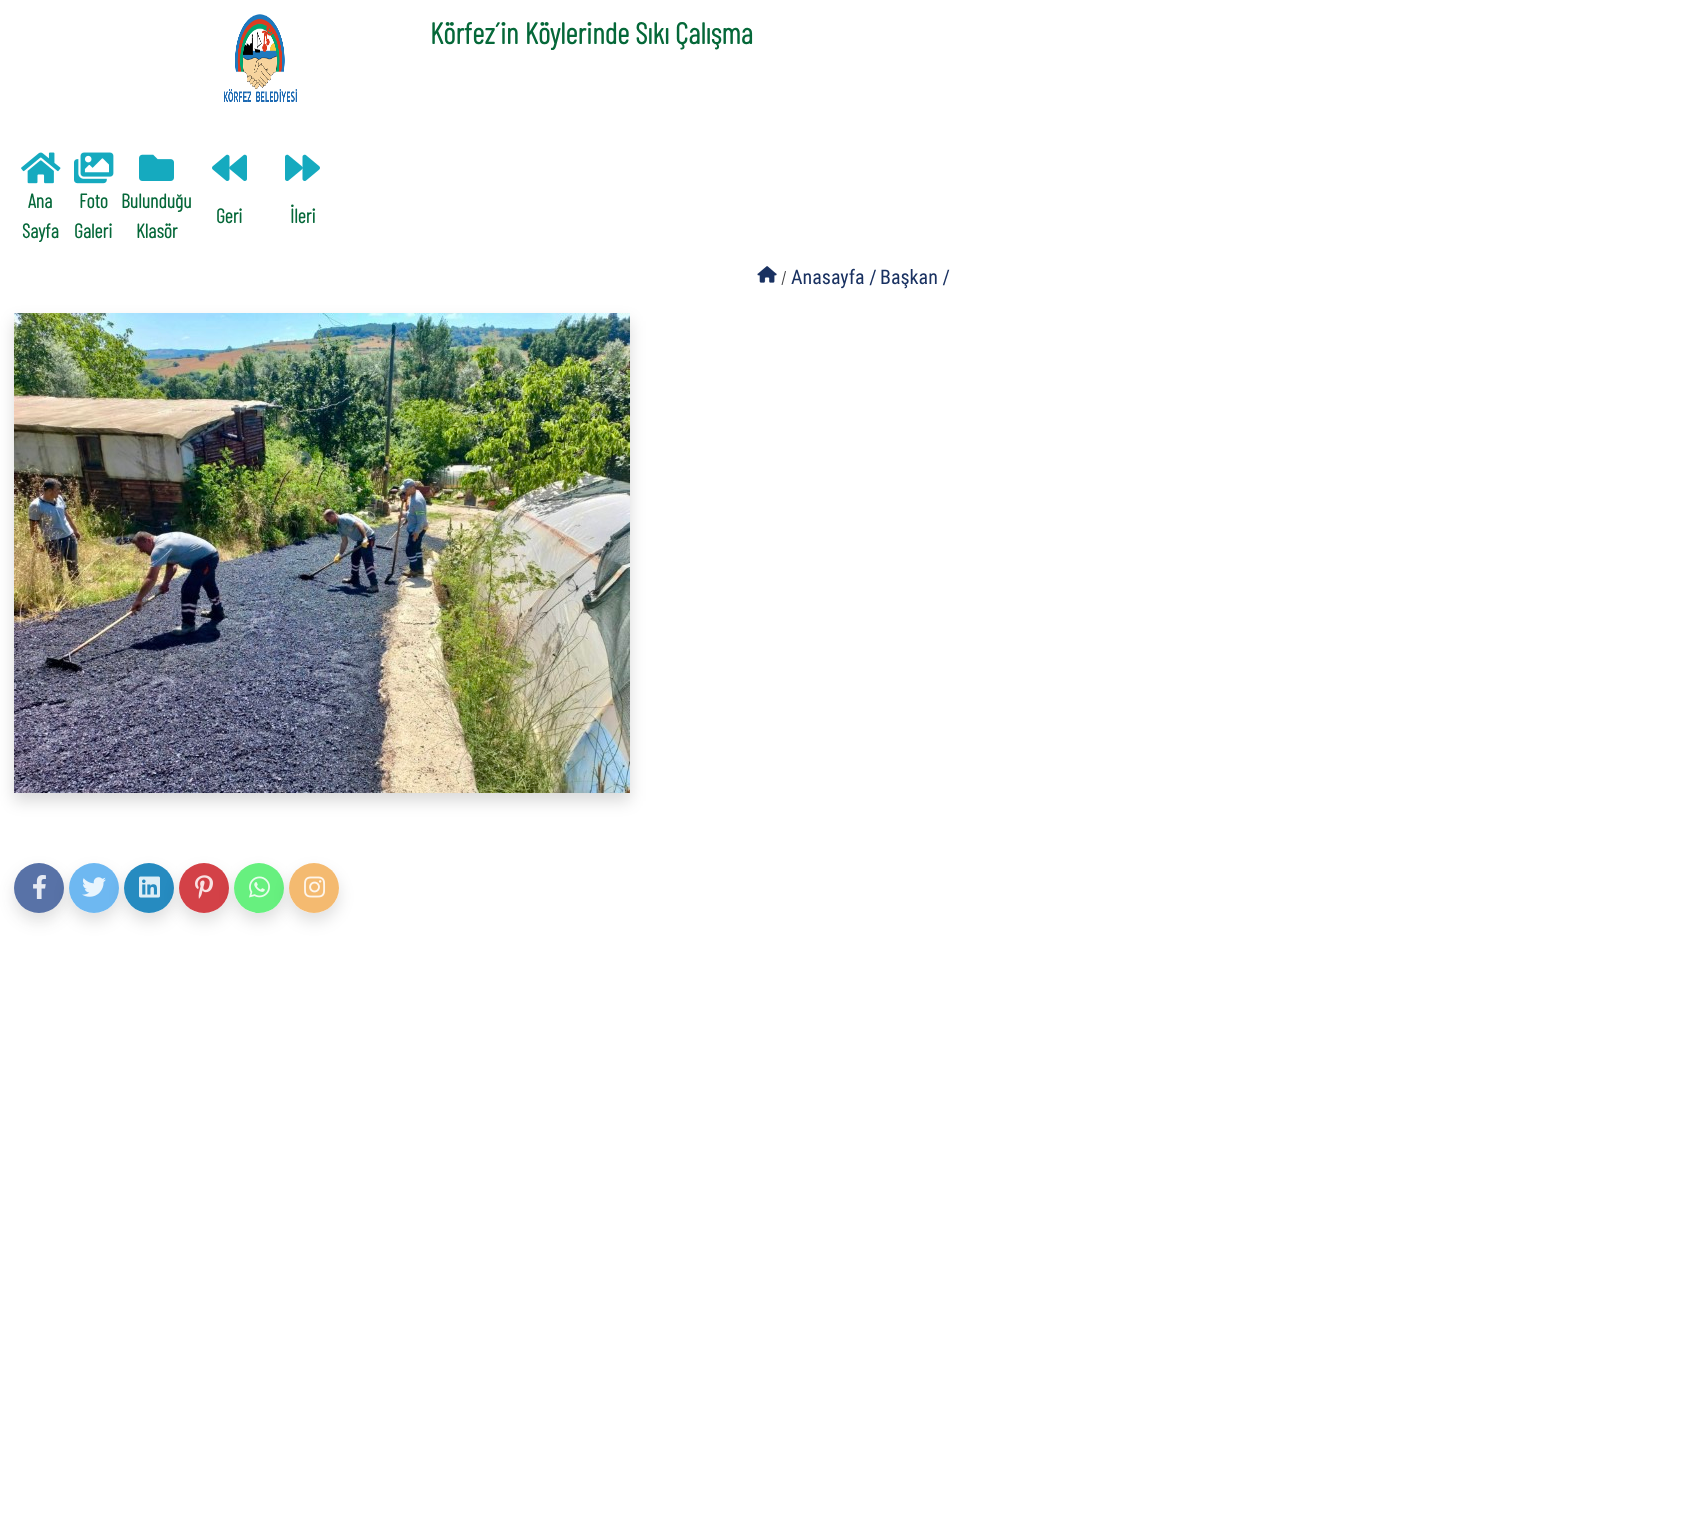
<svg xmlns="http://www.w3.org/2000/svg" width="1706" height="1521">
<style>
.a{font:bold 30px Barlow Condensed;fill:#056839}
.b{font:bold 20px Barlow Condensed;fill:#056839}
.c{font:300 20px Barlow Condensed;fill:#444446}
.d{font:20px Roboto Condensed;fill:#193161}
</style>
<defs>
<clipPath id="clip1"><path d="M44 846h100v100h-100zm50 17c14 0 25 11 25 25c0 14-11 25-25 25c-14 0-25-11-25-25c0-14 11-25 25-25z" clip-rule="evenodd"/></clipPath>
<clipPath id="clip2"><path d="M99 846h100v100h-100zm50 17c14 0 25 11 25 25c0 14-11 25-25 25c-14 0-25-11-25-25c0-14 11-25 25-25z" clip-rule="evenodd"/></clipPath>
<clipPath id="clip3"><path d="M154 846h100v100h-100zm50 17c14 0 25 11 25 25c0 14-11 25-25 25c-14 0-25-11-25-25c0-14 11-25 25-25z" clip-rule="evenodd"/></clipPath>
<clipPath id="clip4"><path d="M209 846h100v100h-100zm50 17c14 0 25 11 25 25c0 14-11 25-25 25c-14 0-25-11-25-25c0-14 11-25 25-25z" clip-rule="evenodd"/></clipPath>
<clipPath id="clip5"><path d="M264 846h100v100h-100zm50 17c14 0 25 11 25 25c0 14-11 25-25 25c-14 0-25-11-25-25c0-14 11-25 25-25z" clip-rule="evenodd"/></clipPath>
</defs>
<rect width="100%" height="100%" fill="#fff"/>
<image href="1.png" x="224" y="14" width="73" height="88"/>
<image href="2.png" x="21" y="152" width="40" height="32"/>
<image href="3.png" x="74" y="152" width="40" height="32"/>
<image href="4.png" x="139" y="154" width="35" height="27"/>
<image href="5.png" x="212" y="154" width="35" height="27"/>
<image href="6.png" x="285" y="154" width="35" height="27"/>
<image href="7.png" x="757" y="266" width="20" height="17"/>
<path fill="#00000026" filter="blur(8px)" d="M14 321h616v480H14z"/>
<image href="8.png" x="14" y="313" width="616" height="480"/>
<rect fill="#26262626" filter="blur(8px)" x="14" y="871" width="50" height="50" rx="25"/>
<circle fill="#5872a7" cx="39" cy="888" r="25"/>
<image href="9.png" x="33" y="875" width="13" height="24"/>
<g clip-path="url(#clip1)">
<rect fill="#00000021" filter="blur(8px)" x="69" y="871" width="50" height="50" rx="25"/>
</g>
<circle fill="#55aceed9" cx="94" cy="888" r="25"/>
<image href="10.png" x="82" y="877" width="24" height="20"/>
<g clip-path="url(#clip2)">
<rect fill="#00000021" filter="blur(8px)" x="124" y="871" width="50" height="50" rx="25"/>
</g>
<circle fill="#0077b5d9" cx="149" cy="888" r="25"/>
<image href="11.png" x="139" y="876" width="21" height="22"/>
<g clip-path="url(#clip3)">
<rect fill="#00000021" filter="blur(8px)" x="179" y="871" width="50" height="50" rx="25"/>
</g>
<circle fill="#cb2027d9" cx="204" cy="888" r="25"/>
<image href="12.png" x="195" y="875" width="18" height="24"/>
<g clip-path="url(#clip4)">
<rect fill="#00000021" filter="blur(8px)" x="234" y="871" width="50" height="50" rx="25"/>
</g>
<circle fill="#4ced69d9" cx="259" cy="888" r="25"/>
<image href="13.png" x="249" y="876" width="21" height="22"/>
<g clip-path="url(#clip5)">
<rect fill="#00000021" filter="blur(8px)" x="289" y="871" width="50" height="50" rx="25"/>
</g>
<circle fill="#f2ae57d9" cx="314" cy="888" r="25"/>
<image href="14.png" x="304" y="876" width="22" height="22"/>
<text class="a" x="430" y="44">Körfez´in Köylerinde Sıkı Çalışma</text>
<text class="b" x="28" y="208">Ana</text>
<text class="b" x="22" y="238">Sayfa</text>
<text class="b" x="79" y="208">Foto</text>
<text class="b" x="74" y="238">Galeri</text>
<text class="b" x="121" y="208">Bulunduğu</text>
<text class="b" x="136" y="238">Klasör</text>
<text class="b" x="216" y="223">Geri</text>
<text class="b" x="290" y="223">İleri</text>
<text class="c" x="781" y="285">/</text>
<text class="d" x="791" y="284">Anasayfa /</text>
<text class="d" x="880" y="284">Başkan /</text>
</svg>
